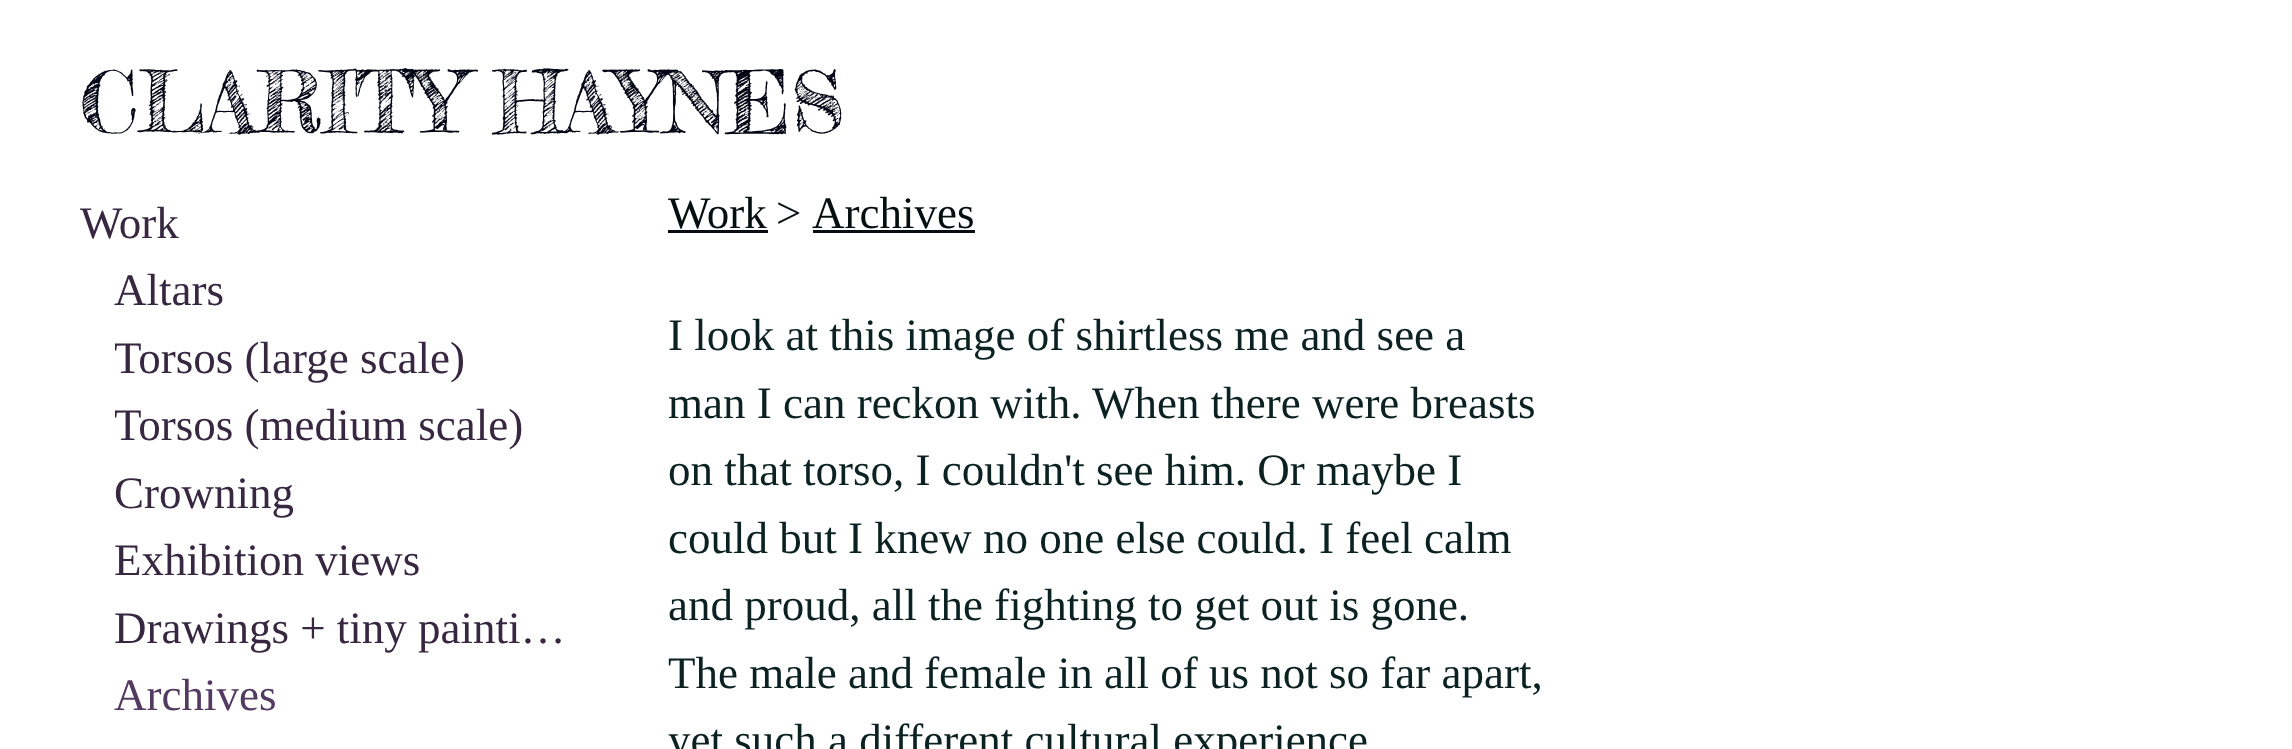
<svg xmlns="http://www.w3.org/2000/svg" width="2292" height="749">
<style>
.a{font:85px Fredericka the Great;fill:#010514}
.b{font:45px Liberation Serif;fill:#372741}
.c{font:45px Liberation Serif;fill:#523a61}
.d{font:45px Liberation Serif;fill:#050f0f}
.e{font:45px Liberation Serif;fill:#0c2222}
</style>
<defs>
<clipPath id="clip1"><path d="M115 325h465v68H115z"/></clipPath>
<clipPath id="clip2"><path d="M115 393h465v67H115z"/></clipPath>
</defs>
<rect width="100%" height="100%" fill="#fff"/>
<path fill="#050f0f" d="M668 230h100v3H668z"/>
<path fill="#050f0f" d="M813 230h162v3H813z"/>
<text class="a" x="80" y="133">CLARITY HAYNES</text>
<text class="b" x="80" y="238">Work</text>
<text class="b" x="114" y="305">Altars</text>
<g clip-path="url(#clip1)">
<text class="b" x="114" y="373">Torsos (large scale)</text>
</g>
<g clip-path="url(#clip2)">
<text class="b" x="114" y="440">Torsos (medium scale)</text>
</g>
<text class="b" x="114" y="508">Crowning</text>
<text class="b" x="114" y="575">Exhibition views</text>
<text class="b" x="114" y="643">Drawings + tiny painti…</text>
<text class="c" x="114" y="710">Archives</text>
<text class="d" x="668" y="228">Work</text>
<text class="d" x="776" y="228">&gt;</text>
<text class="d" x="812" y="228">Archives</text>
<text class="e" x="668" y="350">I look at this image of shirtless me and see a</text>
<text class="e" x="668" y="418">man I can reckon with. When there were breasts</text>
<text class="e" x="668" y="485">on that torso, I couldn't see him. Or maybe I</text>
<text class="e" x="668" y="553">could but I knew no one else could. I feel calm</text>
<text class="e" x="668" y="620">and proud, all the fighting to get out is gone.</text>
<text class="e" x="668" y="688">The male and female in all of us not so far apart,</text>
<text class="e" x="668" y="755">yet such a different cultural experience</text>
</svg>
